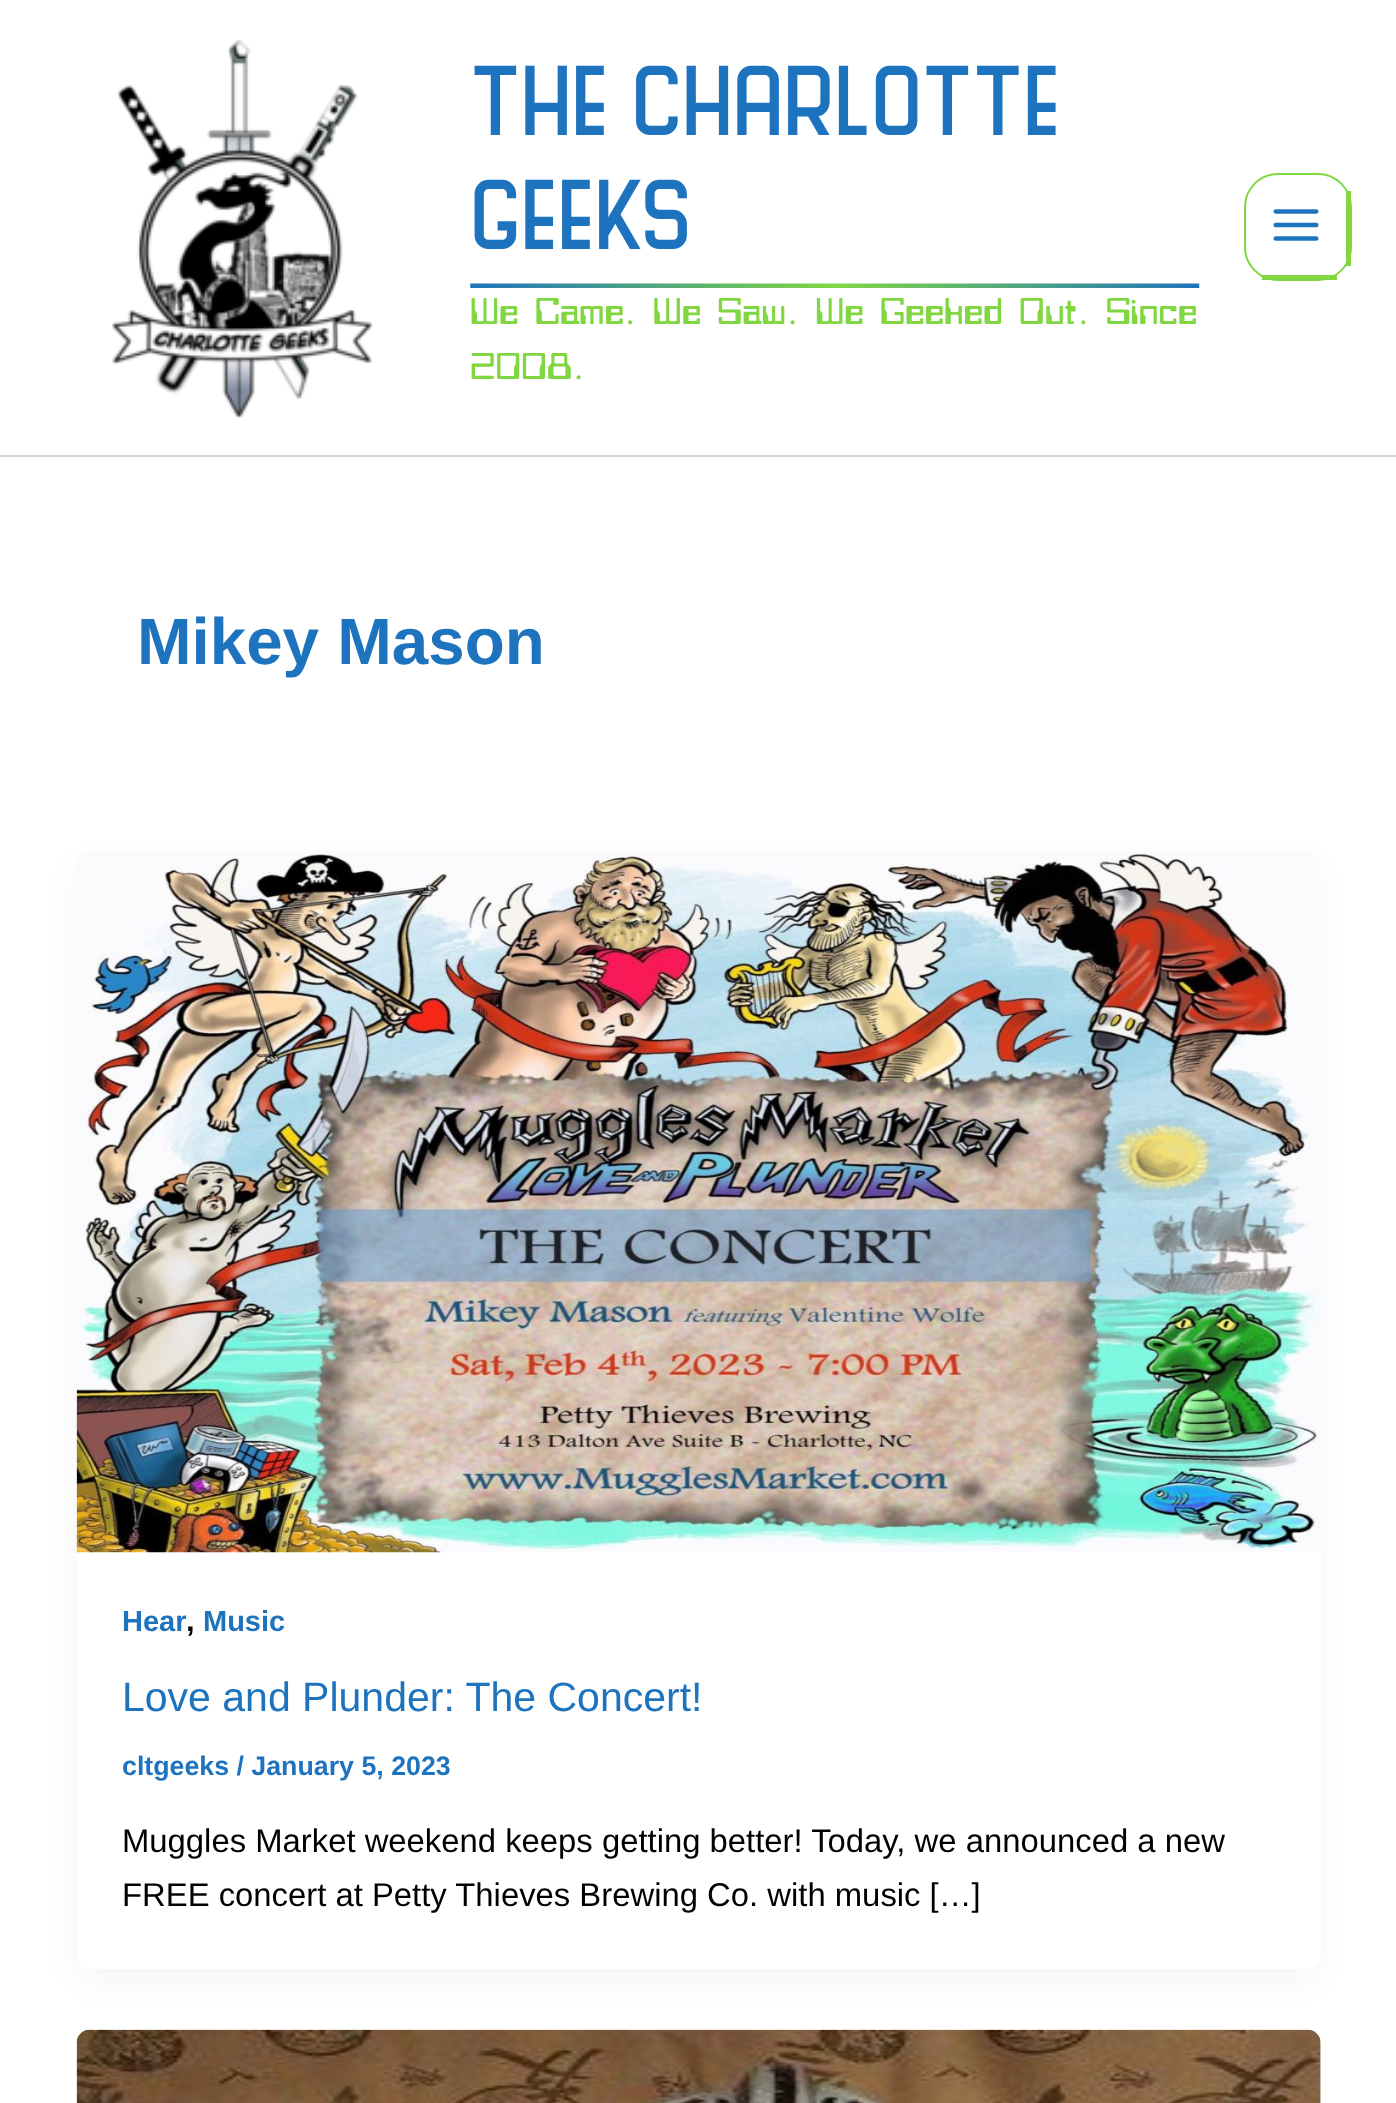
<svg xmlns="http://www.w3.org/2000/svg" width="1396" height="2103">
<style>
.a{font:92.25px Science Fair;fill:#1e73be}
.b{font:36.9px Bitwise;fill:#81d742}
.c{font:bold 65.5px Liberation Sans;fill:#1e73be}
.d{font:bold 29px Liberation Sans;fill:#1e73be}
.e{font:bold 31px Liberation Sans;fill:#000}
.f{font:41px Liberation Sans;fill:#1e73be}
.g{font:bold 26.75px Liberation Sans;fill:#1e73be}
.h{font:32.85px Liberation Sans;fill:#000}
</style>
<rect width="100%" height="100%" fill="#fff"/>
<path fill="#d1d5db" d="M0 455h1396v2H0z"/>
<image href="1.png" x="112" y="40" width="261" height="379"/>
<image href="2.png" x="470" y="283" width="730" height="5"/>
<rect fill="none" stroke="#81d742" stroke-width="2" x="1245" y="174" width="106" height="106" rx="33"/>
<path fill="#81d742" d="M1346 191h5v75H1346z"/>
<path fill="#81d742" d="M1262 275h75v5H1262z"/>
<image href="3.png" x="1273" y="209" width="46" height="32"/>
<rect fill="#1018280d" filter="blur(17px)" x="81" y="869" width="1235" height="1109" rx="9"/>
<rect fill="#fff" x="77" y="851" width="1244" height="1118" rx="14"/>
<image href="4.png" x="76" y="851" width="1245" height="702"/>
<image href="5.png" x="76" y="2029" width="1245" height="74"/>
<text class="a" x="470" y="135">The Charlotte</text>
<text class="a" x="470" y="249">Geeks</text>
<text class="b" x="470" y="324">We Came. We Saw. We Geeked Out. Since</text>
<text class="b" x="470" y="379">2008.</text>
<text class="c" x="137" y="664">Mikey Mason</text>
<text class="d" x="122" y="1631">Hear</text>
<text class="e" x="186" y="1631">,</text>
<text class="d" x="203" y="1631">Music</text>
<text class="f" x="122" y="1711">Love and Plunder: The Concert!</text>
<text class="g" x="122" y="1775">cltgeeks / January 5, 2023</text>
<text class="h" x="122" y="1852">Muggles Market weekend keeps getting better! Today, we announced a new</text>
<text class="h" x="122" y="1906">FREE concert at Petty Thieves Brewing Co. with music […]</text>
</svg>
